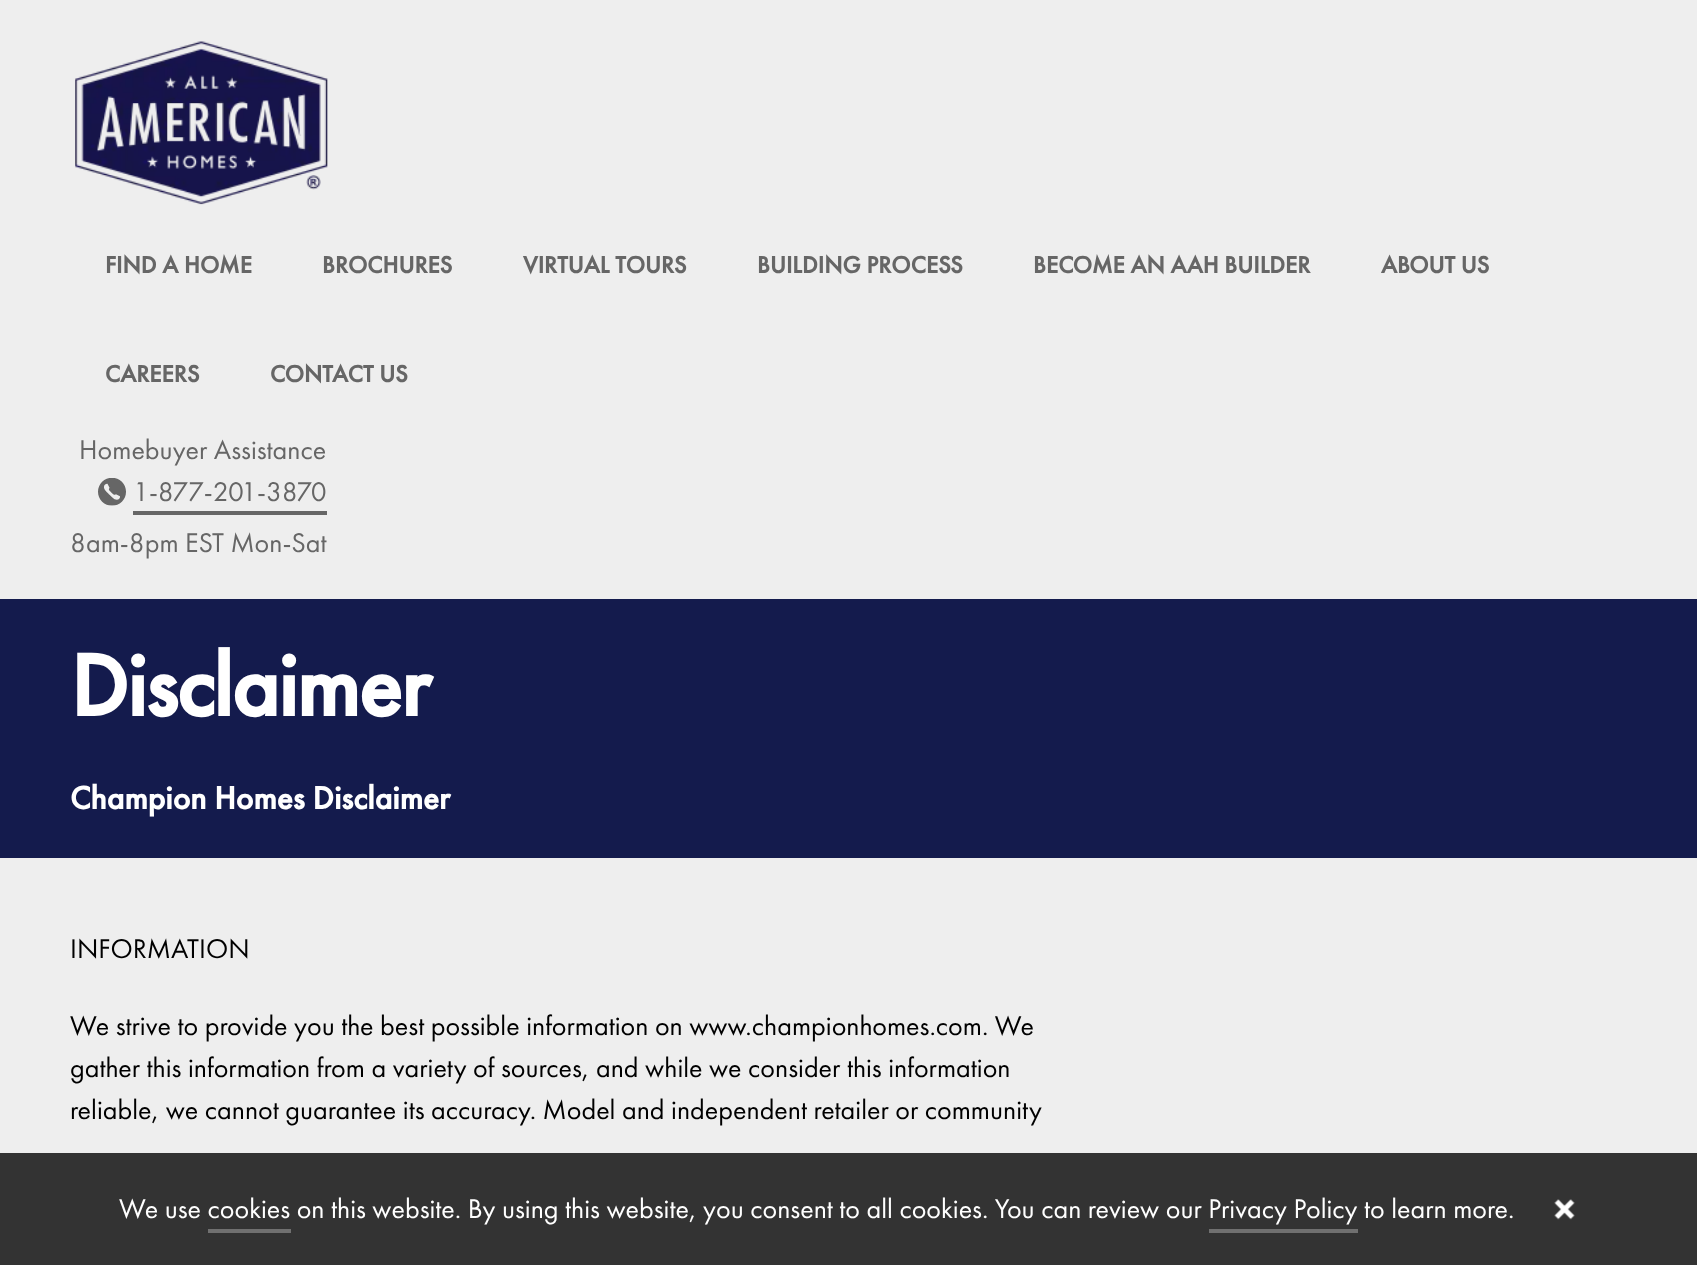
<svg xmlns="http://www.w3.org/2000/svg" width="1697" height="1265">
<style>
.a{font:bold 24.5px Futura PT;fill:#666}
.b{font:28px Futura PT;fill:#666}
.c{font:bold 91px Futura PT;letter-spacing:-1.75px;fill:#fff}
.d{font:bold 33.25px Futura PT;fill:#fff}
.e{font:28px Futura PT;fill:#000}
.f{font:28px Futura PT;fill:#fff}
</style>
<rect width="100%" height="100%" fill="#eee"/>
<image href="1.png" x="75" y="41" width="253" height="164"/>
<image href="2.png" x="98" y="478" width="28" height="28"/>
<path fill="#666" d="M133 511h194v4H133z"/>
<path fill="#141b4d" d="M0 599h1697v259H0z"/>
<path fill="#333" d="M0 1153h1697v112H0z"/>
<path fill="#707070" d="M208 1229h83v4H208z"/>
<path fill="#707070" d="M1209 1229h149v4H1209z"/>
<image href="3.png" x="1554" y="1199" width="21" height="21"/>
<text class="a" x="105" y="273">FIND A HOME</text>
<text class="a" x="322" y="273">BROCHURES</text>
<text class="a" x="523" y="273">VIRTUAL TOURS</text>
<text class="a" x="757" y="273">BUILDING PROCESS</text>
<text class="a" x="1033" y="273">BECOME AN AAH BUILDER</text>
<text class="a" x="1381" y="273">ABOUT US</text>
<text class="a" x="105" y="382">CAREERS</text>
<text class="a" x="270" y="382">CONTACT US</text>
<text class="b" x="79" y="459">Homebuyer Assistance</text>
<text class="b" x="133" y="501">1-877-201-3870</text>
<text class="b" x="70" y="552">8am-8pm EST Mon-Sat</text>
<text class="c" x="70" y="716">Disclaimer</text>
<text class="d" x="70" y="809">Champion Homes Disclaimer</text>
<text class="e" x="70" y="958">INFORMATION</text>
<text class="e" x="70" y="1035">We strive to provide you the best possible information on www.championhomes.com. We</text>
<text class="e" x="70" y="1077">gather this information from a variety of sources, and while we consider this information</text>
<text class="e" x="70" y="1119">reliable, we cannot guarantee its accuracy. Model and independent retailer or community</text>
<text class="f" x="119" y="1218">We use cookies on this website. By using this website, you consent to all cookies. You can review our Privacy Policy to learn more.</text>
</svg>
